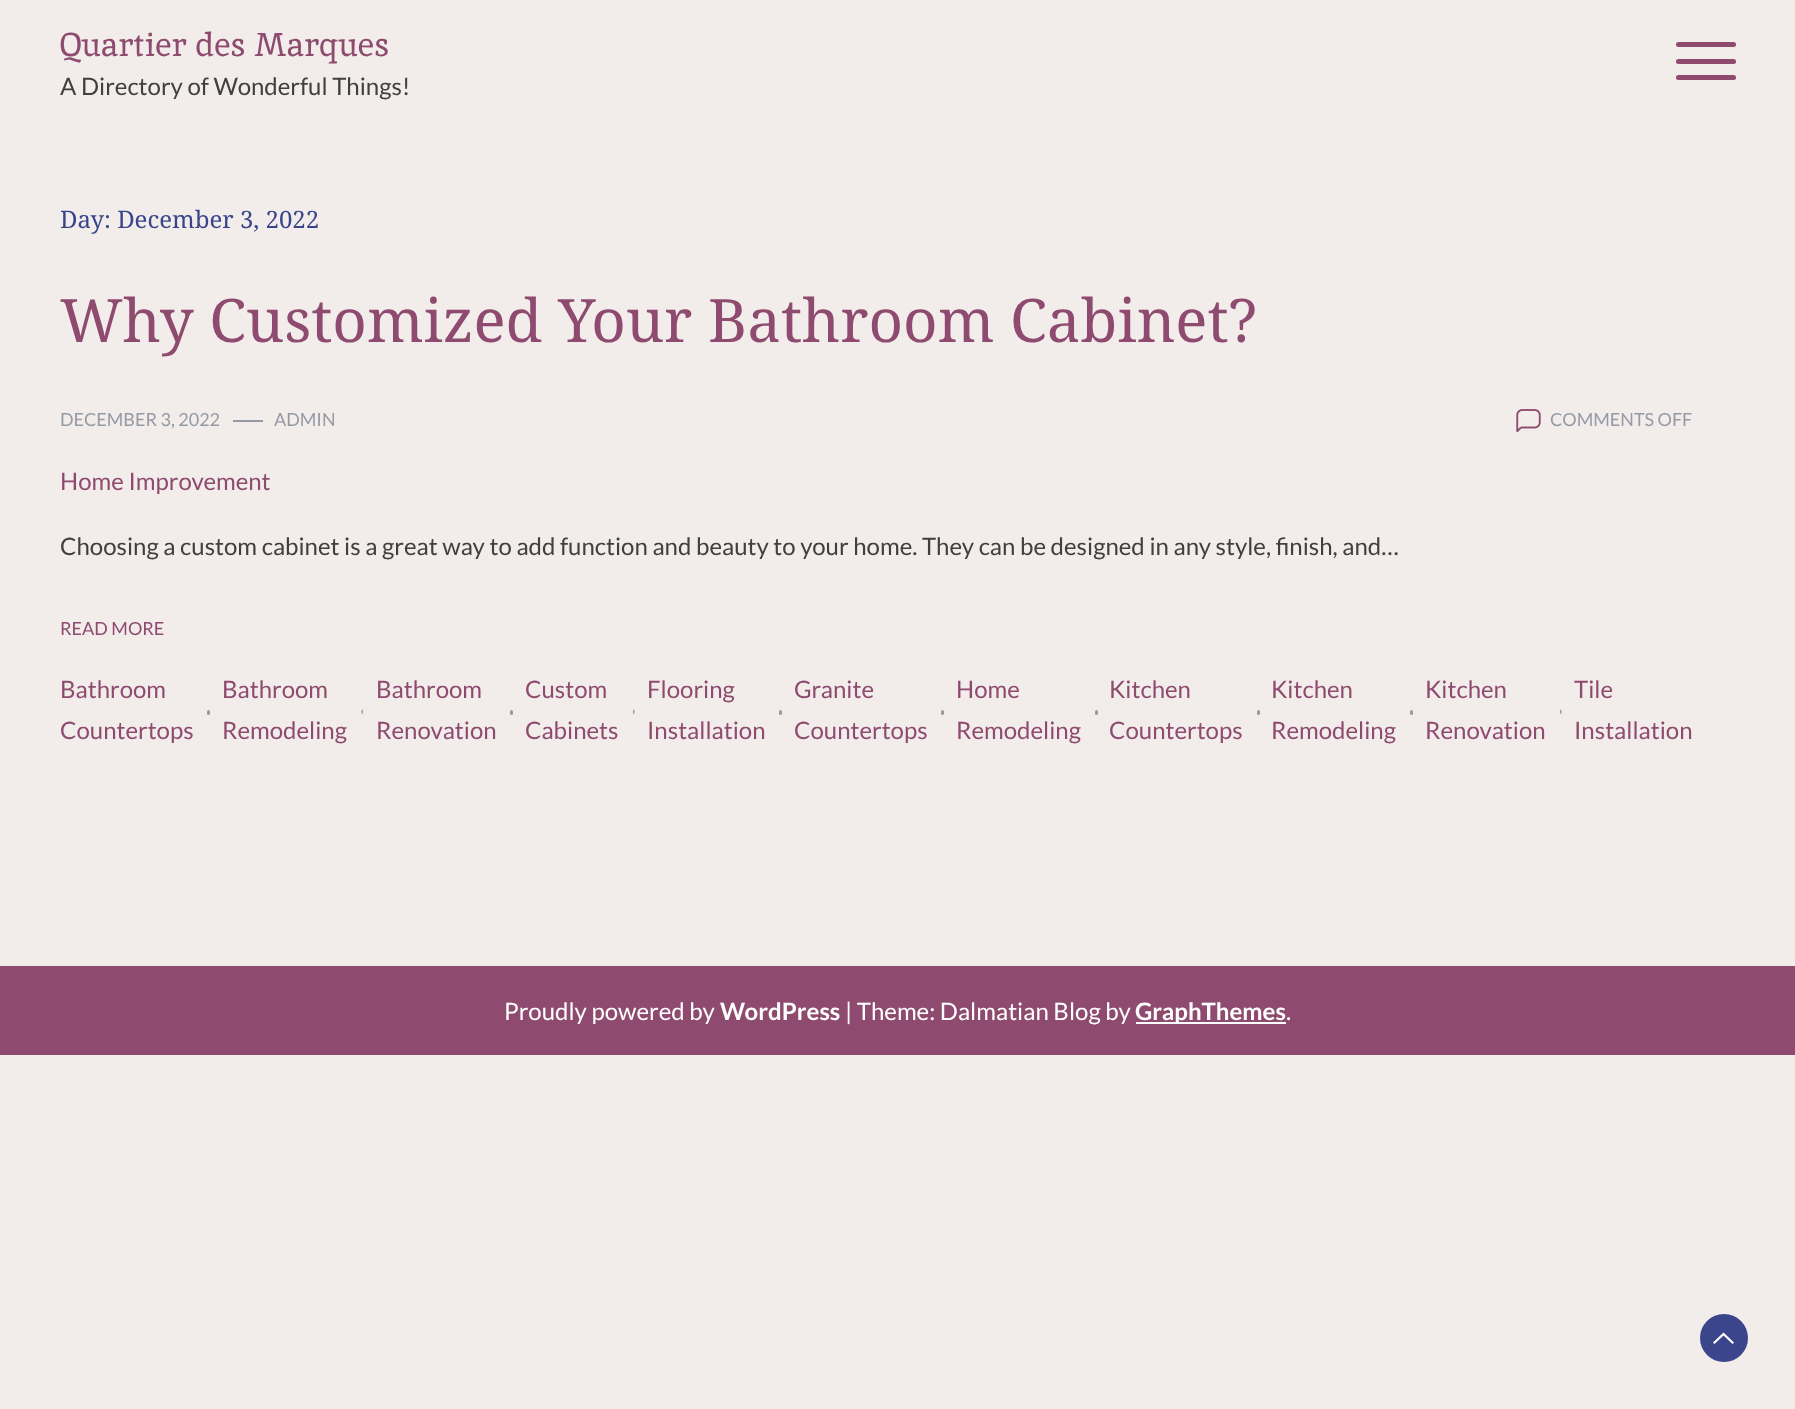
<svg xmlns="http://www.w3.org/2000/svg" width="1795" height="1409">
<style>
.a{font:33px Inika;fill:#8e4b6f}
.b{font:24px Lato;fill:#404040}
.c{font:24px Noto Serif;fill:#3a458c}
.d{font:60px Noto Serif;fill:#8e4b6f}
.e{font:18px Lato;fill:#969aa5}
.f{font:24px Lato;fill:#8e4b6f}
.g{font:18px Lato;fill:#8e4b6f}
.h{font:24px Lato;fill:#fff}
.i{font:bold 24px Lato;fill:#fff}
</style>
<rect width="100%" height="100%" fill="#f2edea"/>
<rect fill="#8e4b6f" x="1676" y="42" width="60" height="5" rx="2.5"/>
<rect fill="#8e4b6f" x="1676" y="59" width="60" height="5" rx="2.5"/>
<rect fill="#8e4b6f" x="1676" y="75" width="60" height="5" rx="2.5"/>
<path fill="#969aa5" d="M233 420h30v2H233z"/>
<image href="1.png" x="1516" y="409" width="25" height="24"/>
<rect fill="#969aa5" x="207" y="710" width="3" height="5" rx="1.5"/>
<ellipse fill="#969aa5" cx="362.2" cy="711.8" rx="0.8" ry="2.2"/>
<rect fill="#969aa5" x="510" y="710" width="3" height="5" rx="1.5"/>
<ellipse fill="#969aa5" cx="633.8" cy="711.8" rx="0.8" ry="2.2"/>
<rect fill="#969aa5" x="779" y="710" width="3" height="5" rx="1.5"/>
<rect fill="#969aa5" x="941" y="710" width="3" height="5" rx="1.5"/>
<rect fill="#969aa5" x="1095" y="710" width="3" height="5" rx="1.5"/>
<rect fill="#969aa5" x="1257" y="710" width="3" height="5" rx="1.5"/>
<rect fill="#969aa5" x="1410" y="710" width="3" height="5" rx="1.5"/>
<ellipse fill="#969aa5" cx="1560.8" cy="711.8" rx="0.8" ry="2.2"/>
<path fill="#8e4b6f" d="M0 966h1795v89H0z"/>
<path fill="#fff" d="M1136 1022h150v2H1136z"/>
<circle fill="#3a458c" cx="1724" cy="1338" r="24"/>
<path fill="#fff" d="M1734 1342.5l-1.5 1.5l-9-8.5l-9 8.5l-1.5-1.5l10.5-10l10.5 10"/>
<text class="a" x="60" y="56">Quartier des Marques</text>
<text class="b" x="60" y="95">A Directory of Wonderful Things!</text>
<text class="c" x="60" y="228">Day: December 3, 2022</text>
<text class="d" x="60" y="342">Why Customized Your Bathroom Cabinet?</text>
<text class="e" x="60" y="426">DECEMBER 3, 2022</text>
<text class="e" x="274" y="426">ADMIN</text>
<text class="e" x="1550" y="426">COMMENTS OFF</text>
<text class="f" x="60" y="490">Home Improvement</text>
<text class="b" x="60" y="555">Choosing a custom cabinet is a great way to add function and beauty to your home. They can be designed in any style, finish, and…</text>
<text class="g" x="60" y="635">READ MORE</text>
<text class="f" x="60" y="698">Bathroom</text>
<text class="f" x="60" y="739">Countertops</text>
<text class="f" x="222" y="698">Bathroom</text>
<text class="f" x="222" y="739">Remodeling</text>
<text class="f" x="376" y="698">Bathroom</text>
<text class="f" x="376" y="739">Renovation</text>
<text class="f" x="525" y="698">Custom</text>
<text class="f" x="525" y="739">Cabinets</text>
<text class="f" x="647" y="698">Flooring</text>
<text class="f" x="647" y="739">Installation</text>
<text class="f" x="794" y="698">Granite</text>
<text class="f" x="794" y="739">Countertops</text>
<text class="f" x="956" y="698">Home</text>
<text class="f" x="956" y="739">Remodeling</text>
<text class="f" x="1109" y="698">Kitchen</text>
<text class="f" x="1109" y="739">Countertops</text>
<text class="f" x="1271" y="698">Kitchen</text>
<text class="f" x="1271" y="739">Remodeling</text>
<text class="f" x="1425" y="698">Kitchen</text>
<text class="f" x="1425" y="739">Renovation</text>
<text class="f" x="1574" y="698">Tile</text>
<text class="f" x="1574" y="739">Installation</text>
<text class="h" x="504" y="1020">Proudly powered by</text>
<text class="i" x="720" y="1020">WordPress</text>
<text class="h" x="845" y="1020">| Theme: Dalmatian Blog by</text>
<text class="i" x="1135" y="1020">GraphThemes</text>
<text class="h" x="1286" y="1020">.</text>
</svg>
